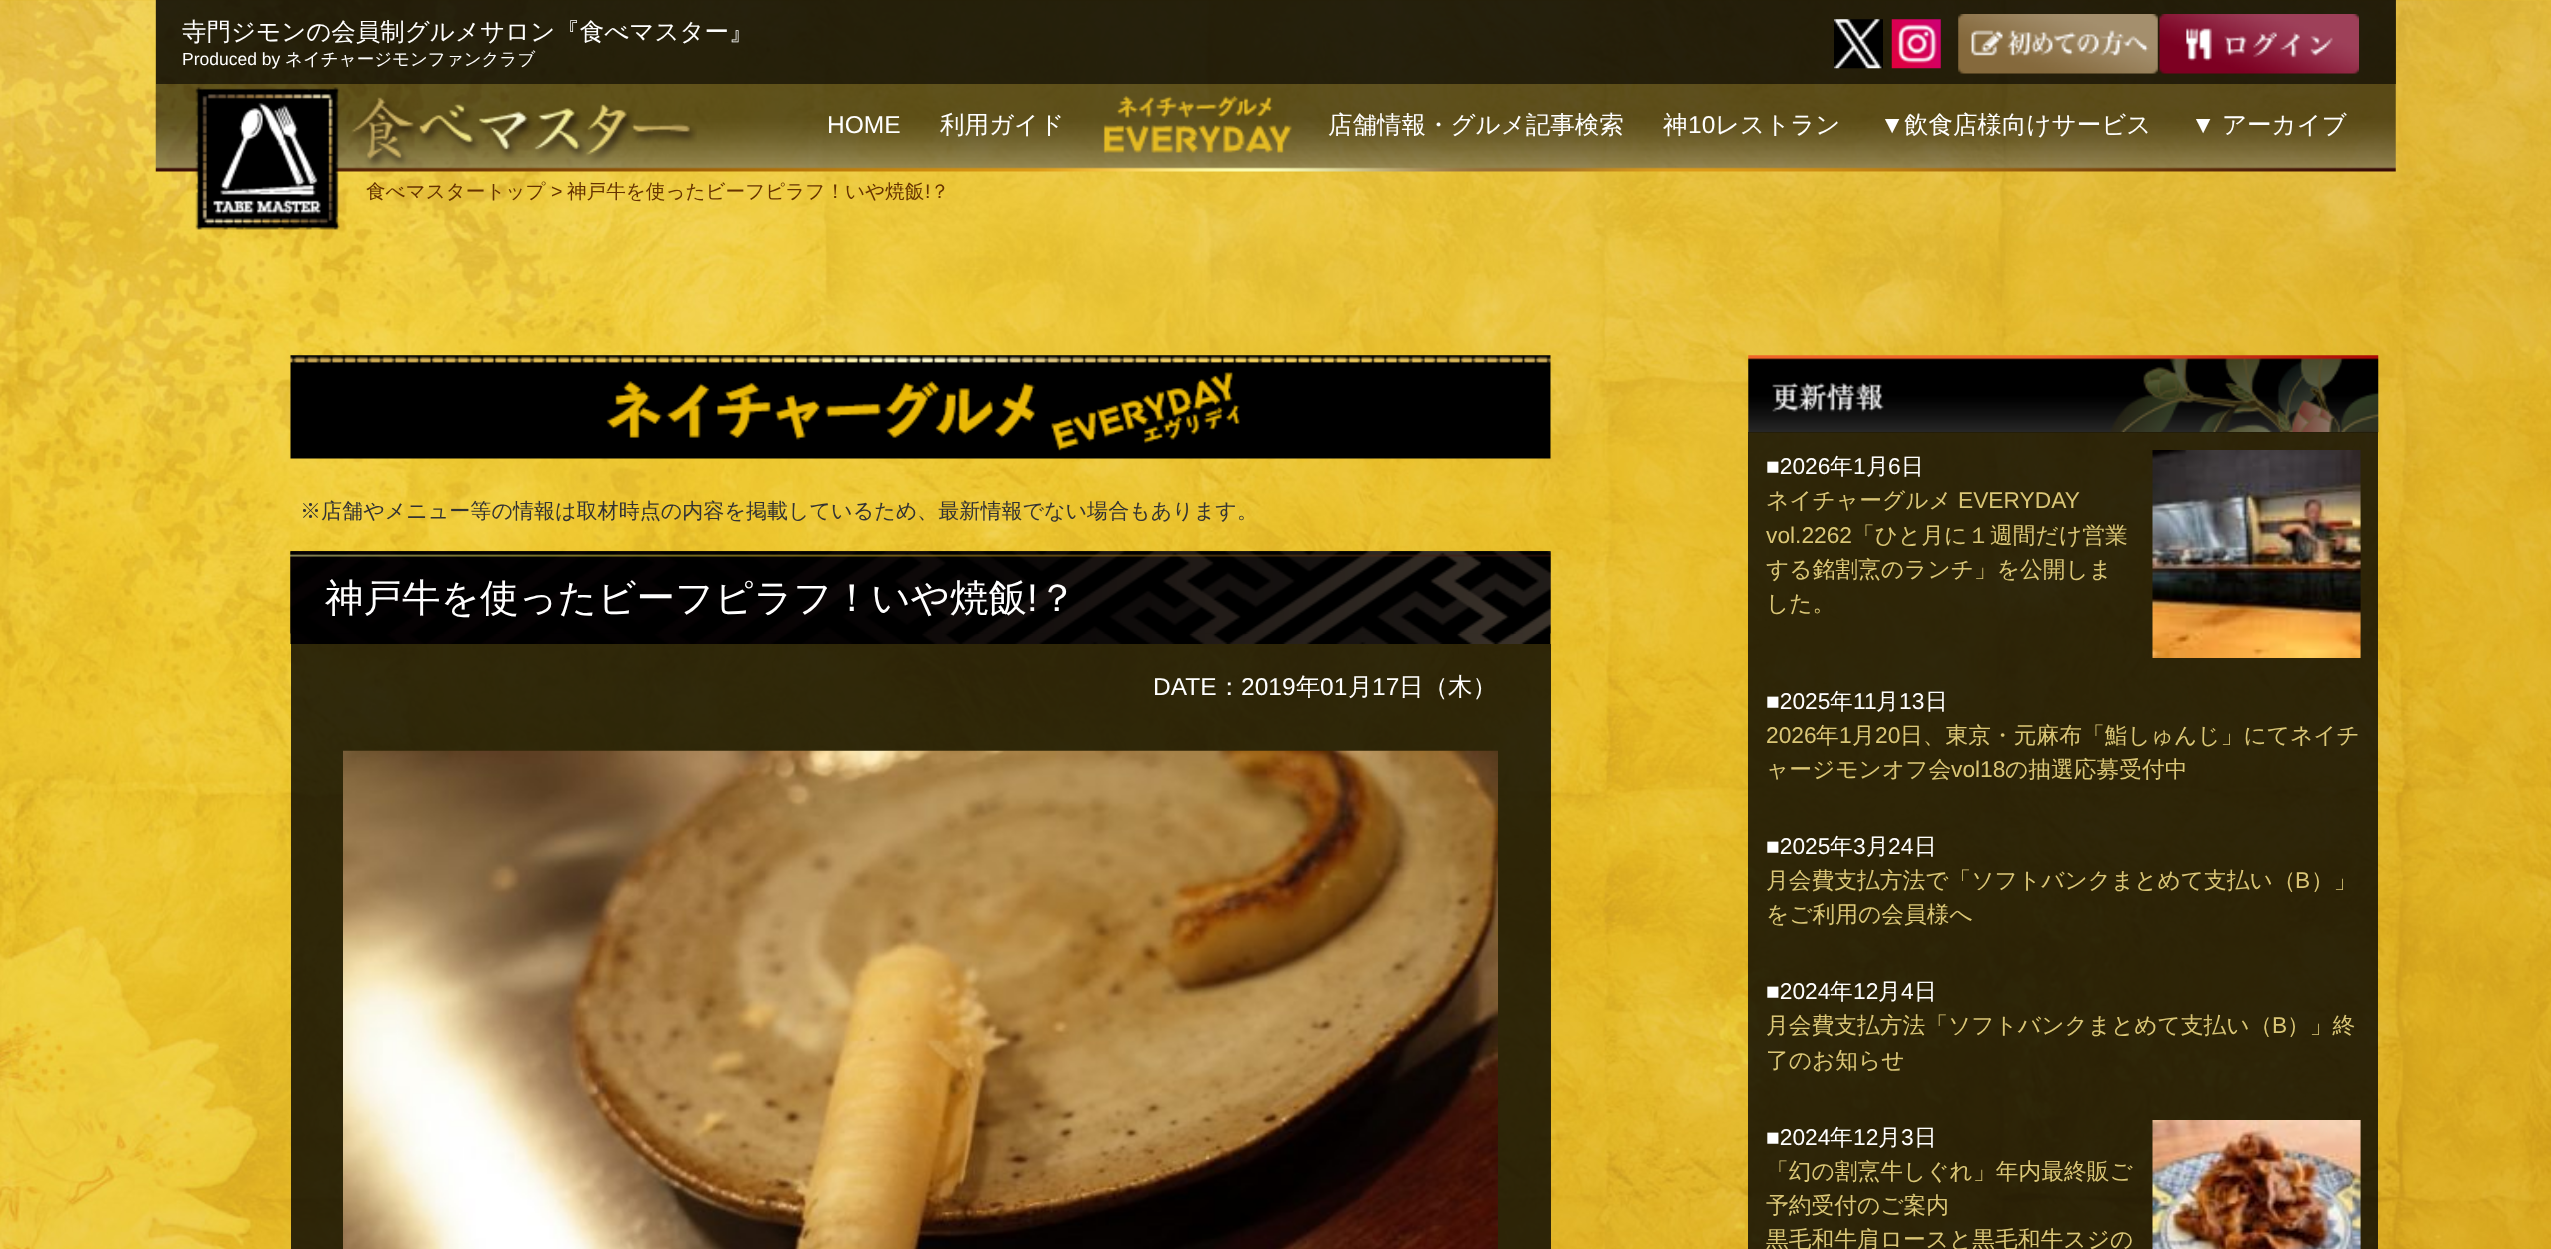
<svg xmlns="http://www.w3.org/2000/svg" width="2551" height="1249">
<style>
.a{font:500 24.5px WenQuanYi Zen Hei;fill:#fff}
.b{font:17.5px Liberation Sans;fill:#fff}
.c{font:500 17.5px WenQuanYi Zen Hei;fill:#fff}
.d{font:24.5px Liberation Sans;fill:#fff}
.e{font:500 19.6px WenQuanYi Zen Hei;fill:#630}
.f{font:19.6px Liberation Sans;fill:#630}
.g{font:500 21.05px WenQuanYi Zen Hei;fill:#333}
.h{font:500 38.5px WenQuanYi Zen Hei;fill:#fff}
.i{font:38.5px Liberation Sans;fill:#fff}
.j{font:22.75px Liberation Sans;fill:#fff}
.k{font:500 22.75px WenQuanYi Zen Hei;fill:#fff}
.l{font:500 22.75px WenQuanYi Zen Hei;fill:#dac676}
.m{font:22.75px Liberation Sans;fill:#dac676}
</style>
<rect width="100%" height="100%" fill="#fff"/>
<image href="1.png" x="0" y="0" width="2551" height="1249"/>
<image href="2.png" x="155" y="0" width="2241" height="172"/>
<path fill="#00000099" d="M156 0h2240v84H156z"/>
<image href="3.png" x="1834" y="19" width="49" height="50"/>
<image href="4.png" x="1891" y="19" width="50" height="50"/>
<image href="5.png" x="1958" y="14" width="200" height="60"/>
<image href="6.png" x="2159" y="14" width="200" height="60"/>
<image href="7.png" x="195" y="87" width="502" height="143"/>
<image href="8.png" x="1103" y="95" width="189" height="58"/>
<image href="9.png" x="290" y="355" width="1261" height="104"/>
<image href="10.png" x="290" y="551" width="1261" height="93"/>
<image href="11.png" x="290" y="551" width="1261" height="83"/>
<path fill="#000000cc" d="M291 644h1260v605H291z"/>
<image href="12.png" x="343" y="750" width="1155" height="499"/>
<image href="13.png" x="1748" y="355" width="631" height="78"/>
<path fill="#000000cc" d="M1748 432h630v817H1748z"/>
<image href="14.png" x="2152" y="450" width="209" height="208"/>
<image href="15.png" x="2152" y="1120" width="209" height="129"/>
<text class="a" x="182" y="40">寺門ジモンの会員制グルメサロン『食べマスター』</text>
<text class="b" x="182" y="65">Produced by</text>
<text class="c" x="285" y="65">ネイチャージモンファンクラブ</text>
<text class="d" x="827" y="133">HOME</text>
<text class="a" x="940" y="133">利用ガイド</text>
<text class="a" x="1328" y="133">店舗情報・グルメ記事検索</text>
<text class="a" x="1663" y="133">神</text>
<text class="d" x="1688" y="133">10</text>
<text class="a" x="1715" y="133">レストラン</text>
<text class="d" x="1880" y="133">▼</text>
<text class="a" x="1904" y="133">飲食店様向けサービス</text>
<text class="d" x="2191" y="133">▼</text>
<text class="a" x="2222" y="133">アーカイブ</text>
<text class="e" x="366" y="198">食べマスタートップ</text>
<text class="f" x="551" y="198">&gt;</text>
<text class="e" x="567" y="198">神戸牛を使ったビーフピラフ！いや焼飯</text>
<text class="f" x="925" y="198">!</text>
<text class="e" x="930" y="198">？</text>
<text class="g" x="300" y="518">※店舗やメニュー等の情報は取材時点の内容を掲載しているため、最新情報でない場合もあります。</text>
<text class="h" x="325" y="611">神戸牛を使ったビーフピラフ！いや焼飯</text>
<text class="i" x="1027" y="611">!</text>
<text class="h" x="1038" y="611">？</text>
<text class="d" x="1153" y="695">DATE</text>
<text class="a" x="1217" y="695">：</text>
<text class="d" x="1241" y="695">2019</text>
<text class="a" x="1296" y="695">年</text>
<text class="d" x="1320" y="695">01</text>
<text class="a" x="1348" y="695">月</text>
<text class="d" x="1372" y="695">17</text>
<text class="a" x="1399" y="695">日（木）</text>
<text class="j" x="1766" y="474">■2026</text>
<text class="k" x="1830" y="474">年</text>
<text class="j" x="1853" y="474">1</text>
<text class="k" x="1866" y="474">月</text>
<text class="j" x="1888" y="474">6</text>
<text class="k" x="1901" y="474">日</text>
<text class="l" x="1766" y="508">ネイチャーグルメ</text>
<text class="m" x="1958" y="508">EVERYDAY</text>
<text class="m" x="1766" y="543">vol.2262</text>
<text class="l" x="1852" y="543">「ひと月に１週間だけ営業</text>
<text class="l" x="1766" y="577">する銘割烹のランチ」を公開しま</text>
<text class="l" x="1766" y="611">した。</text>
<text class="j" x="1766" y="709">■2025</text>
<text class="k" x="1830" y="709">年</text>
<text class="j" x="1853" y="709">11</text>
<text class="k" x="1876" y="709">月</text>
<text class="j" x="1899" y="709">13</text>
<text class="k" x="1925" y="709">日</text>
<text class="m" x="1766" y="743">2026</text>
<text class="l" x="1816" y="743">年</text>
<text class="m" x="1839" y="743">1</text>
<text class="l" x="1852" y="743">月</text>
<text class="m" x="1875" y="743">20</text>
<text class="l" x="1900" y="743">日、東京・元麻布「鮨しゅんじ」にてネイチ</text>
<text class="l" x="1766" y="777">ャージモンオフ会</text>
<text class="m" x="1951" y="777">vol18</text>
<text class="l" x="2005" y="777">の抽選応募受付中</text>
<text class="j" x="1766" y="854">■2025</text>
<text class="k" x="1830" y="854">年</text>
<text class="j" x="1853" y="854">3</text>
<text class="k" x="1866" y="854">月</text>
<text class="j" x="1888" y="854">24</text>
<text class="k" x="1914" y="854">日</text>
<text class="l" x="1766" y="888">月会費支払方法で「ソフトバンクまとめて支払い（</text>
<text class="m" x="2295" y="888">B</text>
<text class="l" x="2311" y="888">）」</text>
<text class="l" x="1766" y="922">をご利用の会員様へ</text>
<text class="j" x="1766" y="999">■2024</text>
<text class="k" x="1830" y="999">年</text>
<text class="j" x="1853" y="999">12</text>
<text class="k" x="1878" y="999">月</text>
<text class="j" x="1901" y="999">4</text>
<text class="k" x="1914" y="999">日</text>
<text class="l" x="1766" y="1033">月会費支払方法「ソフトバンクまとめて支払い（</text>
<text class="m" x="2272" y="1033">B</text>
<text class="l" x="2287" y="1033">）」終</text>
<text class="l" x="1766" y="1068">了のお知らせ</text>
<text class="j" x="1766" y="1145">■2024</text>
<text class="k" x="1830" y="1145">年</text>
<text class="j" x="1853" y="1145">12</text>
<text class="k" x="1878" y="1145">月</text>
<text class="j" x="1901" y="1145">3</text>
<text class="k" x="1914" y="1145">日</text>
<text class="l" x="1766" y="1179">「幻の割烹牛しぐれ」年内最終販ご</text>
<text class="l" x="1766" y="1213">予約受付のご案内</text>
<text class="l" x="1766" y="1247">黒毛和牛肩ロースと黒毛和牛スジの</text>
</svg>
